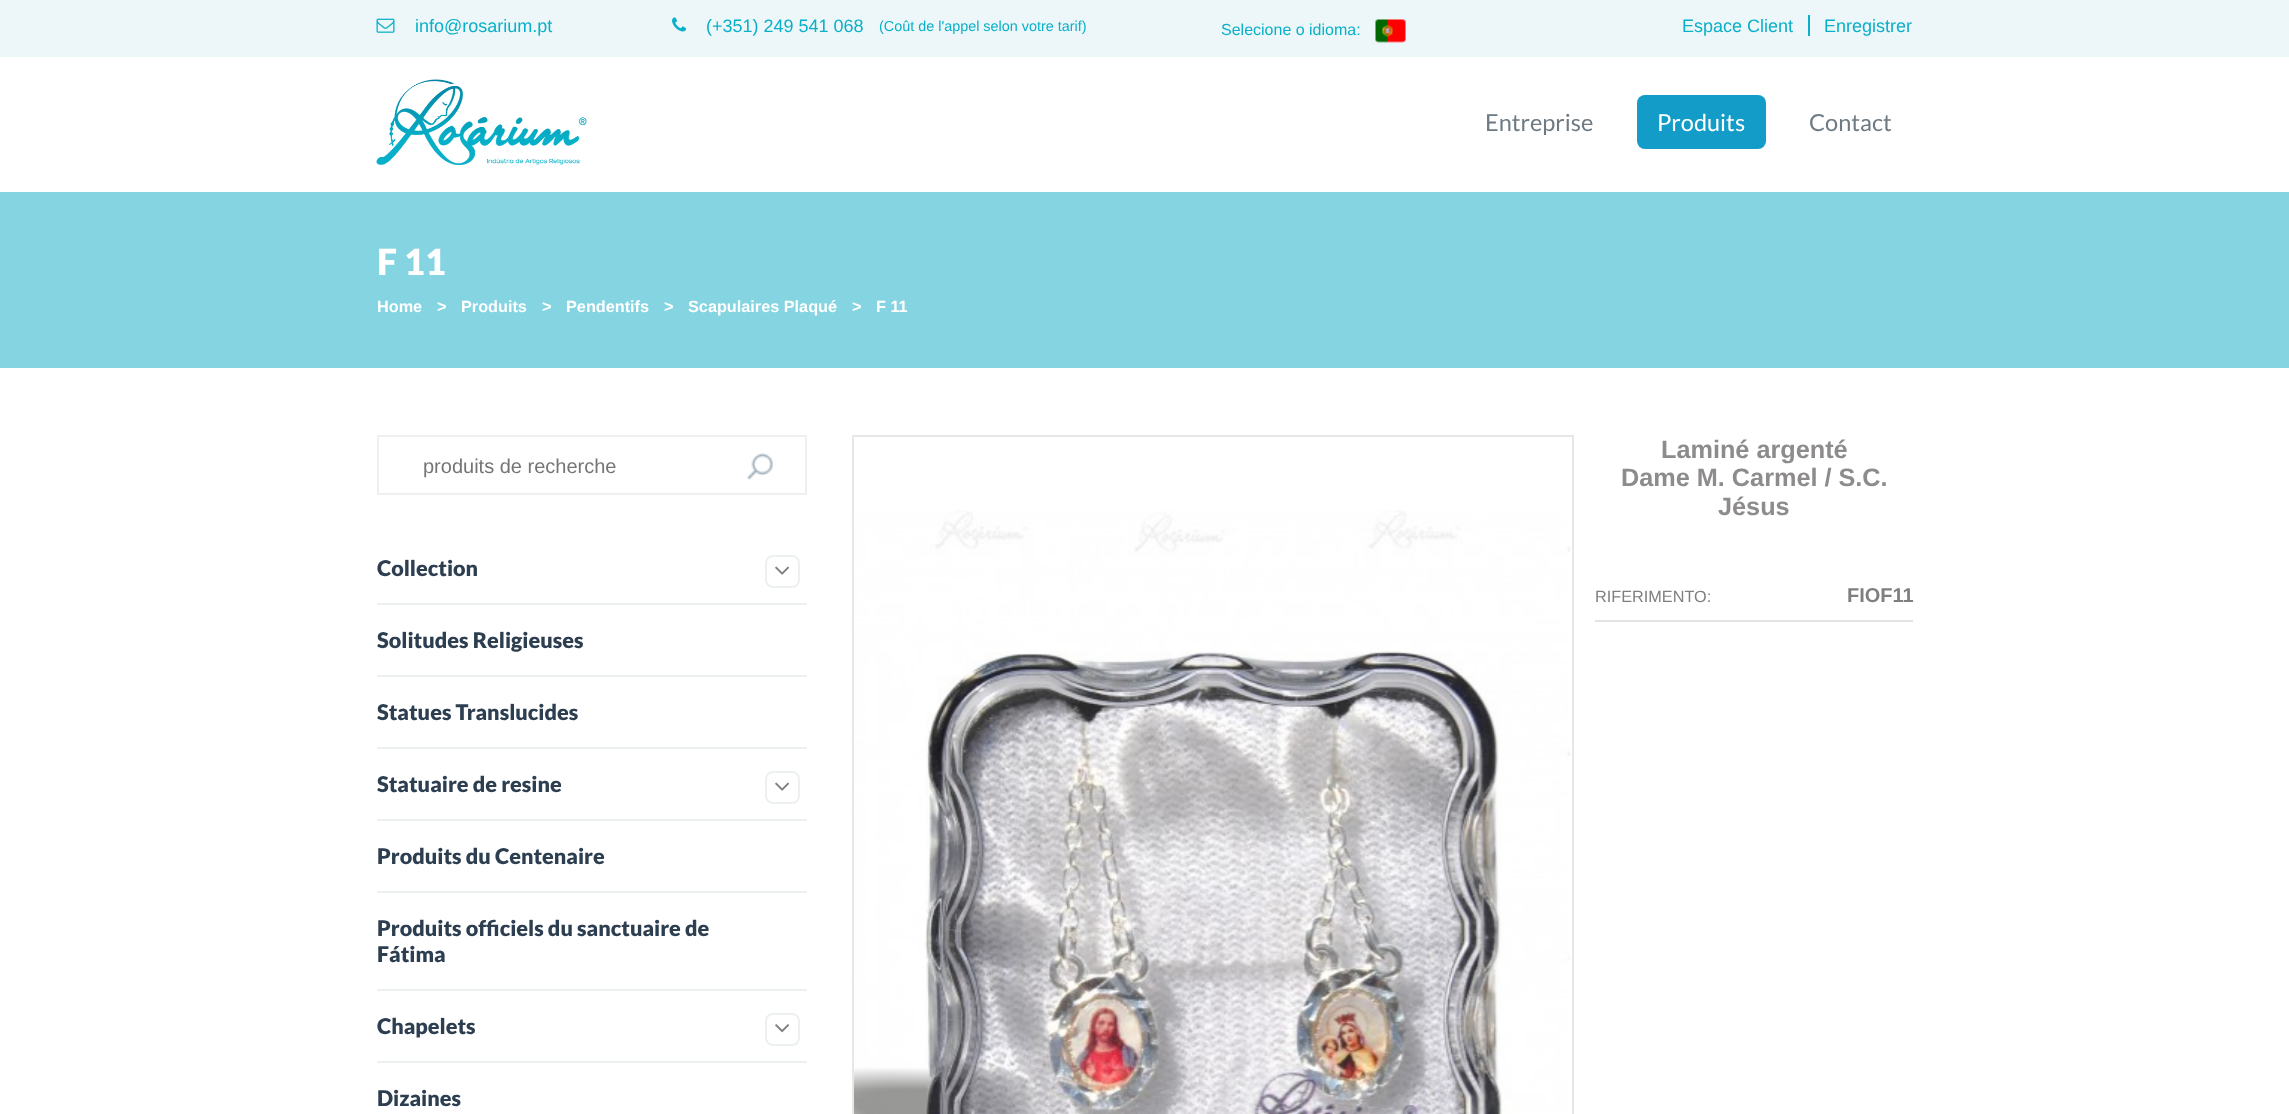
<svg xmlns="http://www.w3.org/2000/svg" width="2289" height="1114">
<style>
.a{font:18px Liberation Sans;fill:#09b0c9}
.b{font:14.4px Liberation Sans;fill:#09b0c9}
.c{font:16px Liberation Sans;fill:#09b0c9}
.d{font:23.5px Lato;fill:#6d7a83}
.e{font:23.5px Lato;fill:#fff}
.f{font:900 36px Lato;fill:#fff}
.g{font:bold 16.25px Liberation Sans;fill:#fff}
.h{font:20px Liberation Sans;fill:#757575}
.i{font:900 21.6px Lato;fill:#2c3e50}
.j{font:bold 25.25px Liberation Sans;fill:#8d8b8b}
.k{font:16.25px Liberation Sans;fill:#7f7f7f}
.l{font:bold 20px Liberation Sans;fill:#7f7f7f}
</style>
<rect width="100%" height="100%" fill="#fff"/>
<path fill="#edf7f9" d="M0 0h2289v57H0z"/>
<image href="1.png" x="376" y="18" width="19" height="15"/>
<image href="2.png" x="672" y="17" width="15" height="15"/>
<image href="3.png" x="1375" y="19" width="31" height="24"/>
<path fill="#09b0c9" d="M1808 15h2v21H1808z"/>
<image href="4.png" x="376" y="79" width="211" height="86"/>
<rect fill="#139cc7" x="1637" y="95" width="129" height="54" rx="8"/>
<path fill="#85d4e1" d="M0 192h2289v176H0z"/>
<path fill="none" stroke="#f0f0f0" stroke-width="2" d="M378 436h428v58H378z"/>
<image href="5.png" x="747" y="453" width="26" height="27"/>
<path fill="#ecf0f1" d="M377 603h430v2H377z"/>
<rect fill="none" stroke="#ecf0f1" stroke-width="2" x="766" y="556" width="33" height="31" rx="7"/>
<image href="6.png" x="775" y="566" width="15" height="9"/>
<path fill="#ecf0f1" d="M377 675h430v2H377z"/>
<path fill="#ecf0f1" d="M377 747h430v2H377z"/>
<path fill="#ecf0f1" d="M377 819h430v2H377z"/>
<rect fill="none" stroke="#ecf0f1" stroke-width="2" x="766" y="772" width="33" height="31" rx="7"/>
<image href="6.png" x="775" y="782" width="15" height="9"/>
<path fill="#ecf0f1" d="M377 891h430v2H377z"/>
<path fill="#ecf0f1" d="M377 989h430v2H377z"/>
<path fill="#ecf0f1" d="M377 1061h430v2H377z"/>
<rect fill="none" stroke="#ecf0f1" stroke-width="2" x="766" y="1014" width="33" height="31" rx="7"/>
<image href="7.png" x="775" y="1024" width="15" height="9"/>
<path fill="none" stroke="#e7e7e7" stroke-width="2" d="M853 436h720v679H853z"/>
<image href="8.png" x="854" y="510" width="717" height="604"/>
<path fill="#e3e3e3" d="M1595 620h318v2H1595z"/>
<text class="a" x="415" y="32">info@rosarium.pt</text>
<text class="a" x="706" y="32">(+351) 249 541 068</text>
<text class="b" x="879" y="31">(Coût de l'appel selon votre tarif)</text>
<text class="c" x="1221" y="35">Selecione o idioma:</text>
<text class="a" x="1682" y="32">Espace Client</text>
<text class="a" x="1824" y="32">Enregistrer</text>
<text class="d" x="1485" y="131">Entreprise</text>
<text class="e" x="1657" y="131">Produits</text>
<text class="d" x="1809" y="131">Contact</text>
<text class="f" x="377" y="275">F 11</text>
<text class="g" x="377" y="312">Home</text>
<text class="g" x="437" y="312">&gt;</text>
<text class="g" x="461" y="312">Produits</text>
<text class="g" x="542" y="312">&gt;</text>
<text class="g" x="566" y="312">Pendentifs</text>
<text class="g" x="664" y="312">&gt;</text>
<text class="g" x="688" y="312">Scapulaires Plaqué</text>
<text class="g" x="852" y="312">&gt;</text>
<text class="g" x="876" y="312">F 11</text>
<text class="h" x="423" y="473">produits de recherche</text>
<text class="i" x="377" y="576">Collection</text>
<text class="i" x="377" y="648">Solitudes Religieuses</text>
<text class="i" x="377" y="720">Statues Translucides</text>
<text class="i" x="377" y="792">Statuaire de resine</text>
<text class="i" x="377" y="864">Produits du Centenaire</text>
<text class="i" x="377" y="936">Produits officiels du sanctuaire de</text>
<text class="i" x="377" y="962">Fátima</text>
<text class="i" x="377" y="1034">Chapelets</text>
<text class="i" x="377" y="1106">Dizaines</text>
<text class="j" x="1661" y="458">Laminé argenté</text>
<text class="j" x="1621" y="486">Dame M. Carmel / S.C.</text>
<text class="j" x="1718" y="515">Jésus</text>
<text class="k" x="1595" y="602">RIFERIMENTO:</text>
<text class="l" x="1847" y="602">FIOF11</text>
</svg>
